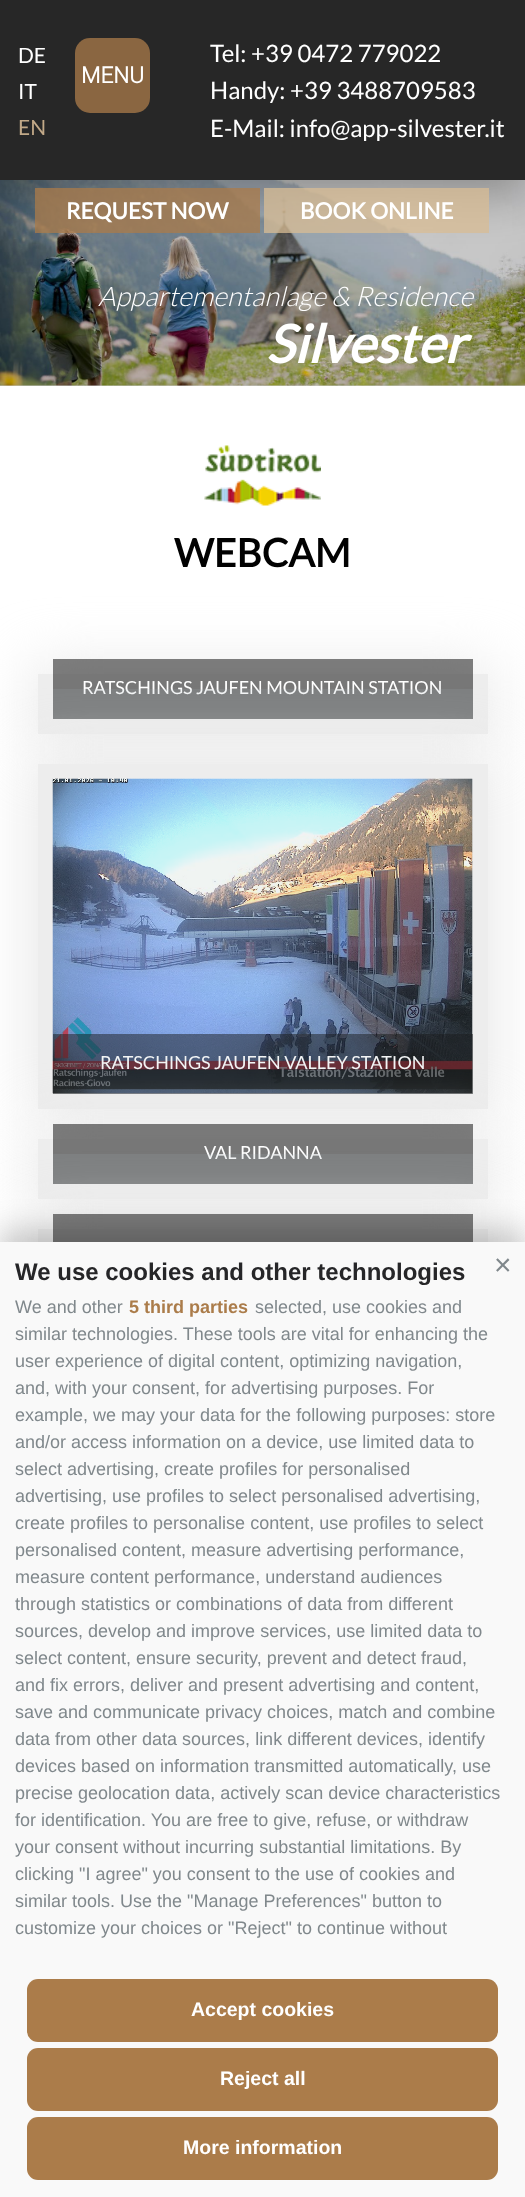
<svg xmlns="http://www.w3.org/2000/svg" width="525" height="2197">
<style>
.a{font:21px Lato;fill:#fff}
.b{font:21px Lato;fill:#c2a988}
.c{font:bold 22.5px Roboto;fill:#fff}
.d{font:24px Lato;fill:#fff}
.e{font:bold 22.5px Lato;fill:#fff}
.f{font:italic 300 27px Lato;fill:#fff}
.g{font:italic bold 52.5px Lato;fill:#fff}
.h{font:bold 39px Lato;fill:#010101}
.i{font:18px Lato;fill:#fff}
.j{font:bold 24px Liberation Sans;fill:#262628}
.k{font:30px Liberation Sans;fill:#80888c}
.l{font:18px Liberation Sans;fill:#80888c}
.m{font:bold 18px Liberation Sans;fill:#ab7c4a}
.n{font:bold 19.5px Liberation Sans;fill:#fff}
</style>
<rect width="100%" height="100%" fill="#fff"/>
<path fill="#ccc" d="M0 385h525v1H0z"/>
<image href="1.png" x="0" y="180" width="525" height="206"/>
<path fill="#0101014d" filter="blur(22.5px)" d="M0 15h525v180H0z"/>
<path fill="#272727" d="M0 0h525v180H0z"/>
<rect fill="#8a6641" x="75" y="38" width="75" height="75" rx="15"/>
<path fill="#ab7b4abf" d="M35 188h225v45H35z"/>
<path fill="#d8bc94bf" d="M264 188h225v45H264z"/>
<image href="2.png" x="204" y="445" width="117" height="61"/>
<path fill="#e7e7e7" filter="blur(30px)" d="M32 668h462v72H32z"/>
<path fill="#ededed" d="M38 674h450v60H38z"/>
<path fill="#01010180" d="M53 659h420v60H53z"/>
<path fill="#e7e7e7" filter="blur(30px)" d="M32 758h462v357H32z"/>
<path fill="#ededed" d="M38 764h450v345H38z"/>
<image href="3.png" x="52" y="778" width="421" height="316"/>
<path fill="#01010180" d="M53 1034h420v60H53z"/>
<path fill="#e7e7e7" filter="blur(30px)" d="M32 1133h462v72H32z"/>
<path fill="#ededed" d="M38 1139h450v60H38z"/>
<path fill="#01010180" d="M53 1124h420v60H53z"/>
<path fill="#e7e7e7" filter="blur(30px)" d="M32 1223h462v72H32z"/>
<path fill="#ededed" d="M38 1229h450v13H38z"/>
<path fill="#01010180" d="M53 1214h420v28H53z"/>
<path fill="#00000033" filter="blur(15px)" d="M0 1230h525v956H0z"/>
<path fill="#f9f9f9" d="M0 1242h525v955H0z"/>
<rect fill="#ab7c4a" x="27" y="1979" width="471" height="63" rx="11"/>
<rect fill="#ab7c4a" x="27" y="2048" width="471" height="63" rx="11"/>
<rect fill="#ab7c4a" x="27" y="2117" width="471" height="63" rx="11"/>
<text class="a" x="18" y="63">DE</text>
<text class="a" x="18" y="99">IT</text>
<text class="b" x="18" y="135">EN</text>
<text class="c" x="81" y="83">MENU</text>
<text class="d" x="210" y="62">Tel: +39 0472 779022</text>
<text class="d" x="210" y="99">Handy: +39 3488709583</text>
<text class="d" x="210" y="137">E-Mail: info@app-silvester.it</text>
<text class="e" x="66" y="219">REQUEST NOW</text>
<text class="e" x="300" y="219">BOOK ONLINE</text>
<text class="f" x="98" y="306">Appartementanlage &amp; Residence</text>
<text class="g" x="266" y="363">Silvester</text>
<text class="h" x="174" y="567">WEBCAM</text>
<text class="i" x="82" y="694">RATSCHINGS JAUFEN MOUNTAIN STATION</text>
<path fill="#abb4b926" d="M53 689h420v30H53z"/>
<text class="i" x="100" y="1069">RATSCHINGS JAUFEN VALLEY STATION</text>
<path fill="#abb4b926" d="M53 779h420v315H53z"/>
<text class="i" x="204" y="1159">VAL RIDANNA</text>
<path fill="#abb4b926" d="M53 1154h420v30H53z"/>
<text class="j" x="15" y="1280">We use cookies and other technologies</text>
<text class="k" x="494" y="1275">×</text>
<text class="l" x="15" y="1313">We and other</text>
<text class="m" x="129" y="1313">5 third parties</text>
<text class="l" x="255" y="1313">selected, use cookies and</text>
<text class="l" x="15" y="1340">similar technologies. These tools are vital for enhancing the</text>
<text class="l" x="15" y="1367">user experience of digital content, optimizing navigation,</text>
<text class="l" x="15" y="1394">and, with your consent, for advertising purposes. For</text>
<text class="l" x="15" y="1421">example, we may your data for the following purposes: store</text>
<text class="l" x="15" y="1448">and/or access information on a device, use limited data to</text>
<text class="l" x="15" y="1475">select advertising, create profiles for personalised</text>
<text class="l" x="15" y="1502">advertising, use profiles to select personalised advertising,</text>
<text class="l" x="15" y="1529">create profiles to personalise content, use profiles to select</text>
<text class="l" x="15" y="1556">personalised content, measure advertising performance,</text>
<text class="l" x="15" y="1583">measure content performance, understand audiences</text>
<text class="l" x="15" y="1610">through statistics or combinations of data from different</text>
<text class="l" x="15" y="1637">sources, develop and improve services, use limited data to</text>
<text class="l" x="15" y="1664">select content, ensure security, prevent and detect fraud,</text>
<text class="l" x="15" y="1691">and fix errors, deliver and present advertising and content,</text>
<text class="l" x="15" y="1718">save and communicate privacy choices, match and combine</text>
<text class="l" x="15" y="1745">data from other data sources, link different devices, identify</text>
<text class="l" x="15" y="1772">devices based on information transmitted automatically, use</text>
<text class="l" x="15" y="1799">precise geolocation data, actively scan device characteristics</text>
<text class="l" x="15" y="1826">for identification. You are free to give, refuse, or withdraw</text>
<text class="l" x="15" y="1853">your consent without incurring substantial limitations. By</text>
<text class="l" x="15" y="1880">clicking "I agree" you consent to the use of cookies and</text>
<text class="l" x="15" y="1907">similar tools. Use the "Manage Preferences" button to</text>
<text class="l" x="15" y="1934">customize your choices or "Reject" to continue without</text>
<text class="n" x="191" y="2016">Accept cookies</text>
<text class="n" x="220" y="2085">Reject all</text>
<text class="n" x="183" y="2154">More information</text>
</svg>
